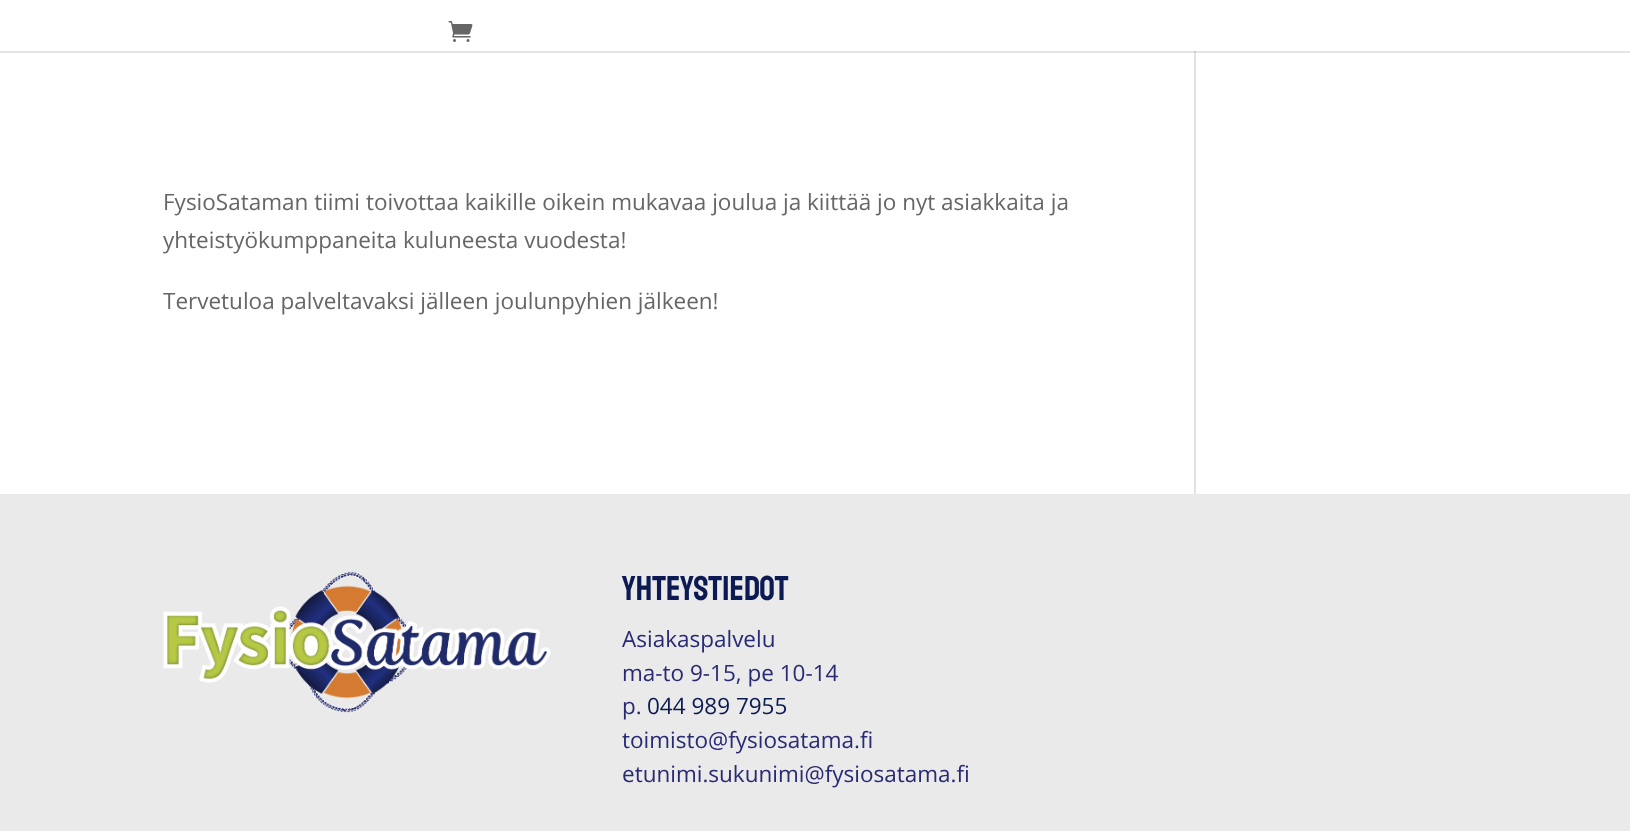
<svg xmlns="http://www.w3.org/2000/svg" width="1630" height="831">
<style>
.a{font:22.5px Open Sans;fill:#666}
.b{font:34.5px Staatliches;fill:#0b1a52}
.c{font:22.5px Open Sans;fill:#282a73}
.d{font:22.5px Open Sans;fill:#0b1a52}
</style>
<rect width="100%" height="100%" fill="#fff"/>
<path fill="#e2e2e2" d="M1194 51h2v443H1194z"/>
<path fill="#0000001a" d="M0 51v2h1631v-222h-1v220z"/>
<image href="1.png" x="448" y="21" width="25" height="21"/>
<path fill="#eaeaea" d="M0 494h1630v337H0z"/>
<image href="2.png" x="163" y="571" width="388" height="142"/>
<text class="a" x="163" y="210">FysioSataman tiimi toivottaa kaikille oikein mukavaa joulua ja kiittää jo nyt asiakkaita ja</text>
<text class="a" x="163" y="248">yhteistyökumppaneita kuluneesta vuodesta!</text>
<text class="a" x="163" y="309">Tervetuloa palveltavaksi jälleen joulunpyhien jälkeen!</text>
<text class="b" x="622" y="600">Yhteystiedot</text>
<text class="c" x="622" y="647">Asiakaspalvelu</text>
<text class="c" x="622" y="681">ma-to 9-15, pe 10-14</text>
<text class="c" x="622" y="714">p.</text>
<text class="d" x="647" y="714">044 989 7955</text>
<text class="c" x="622" y="748">toimisto@fysiosatama.fi</text>
<text class="c" x="622" y="782">etunimi.sukunimi@fysiosatama.fi</text>
</svg>
